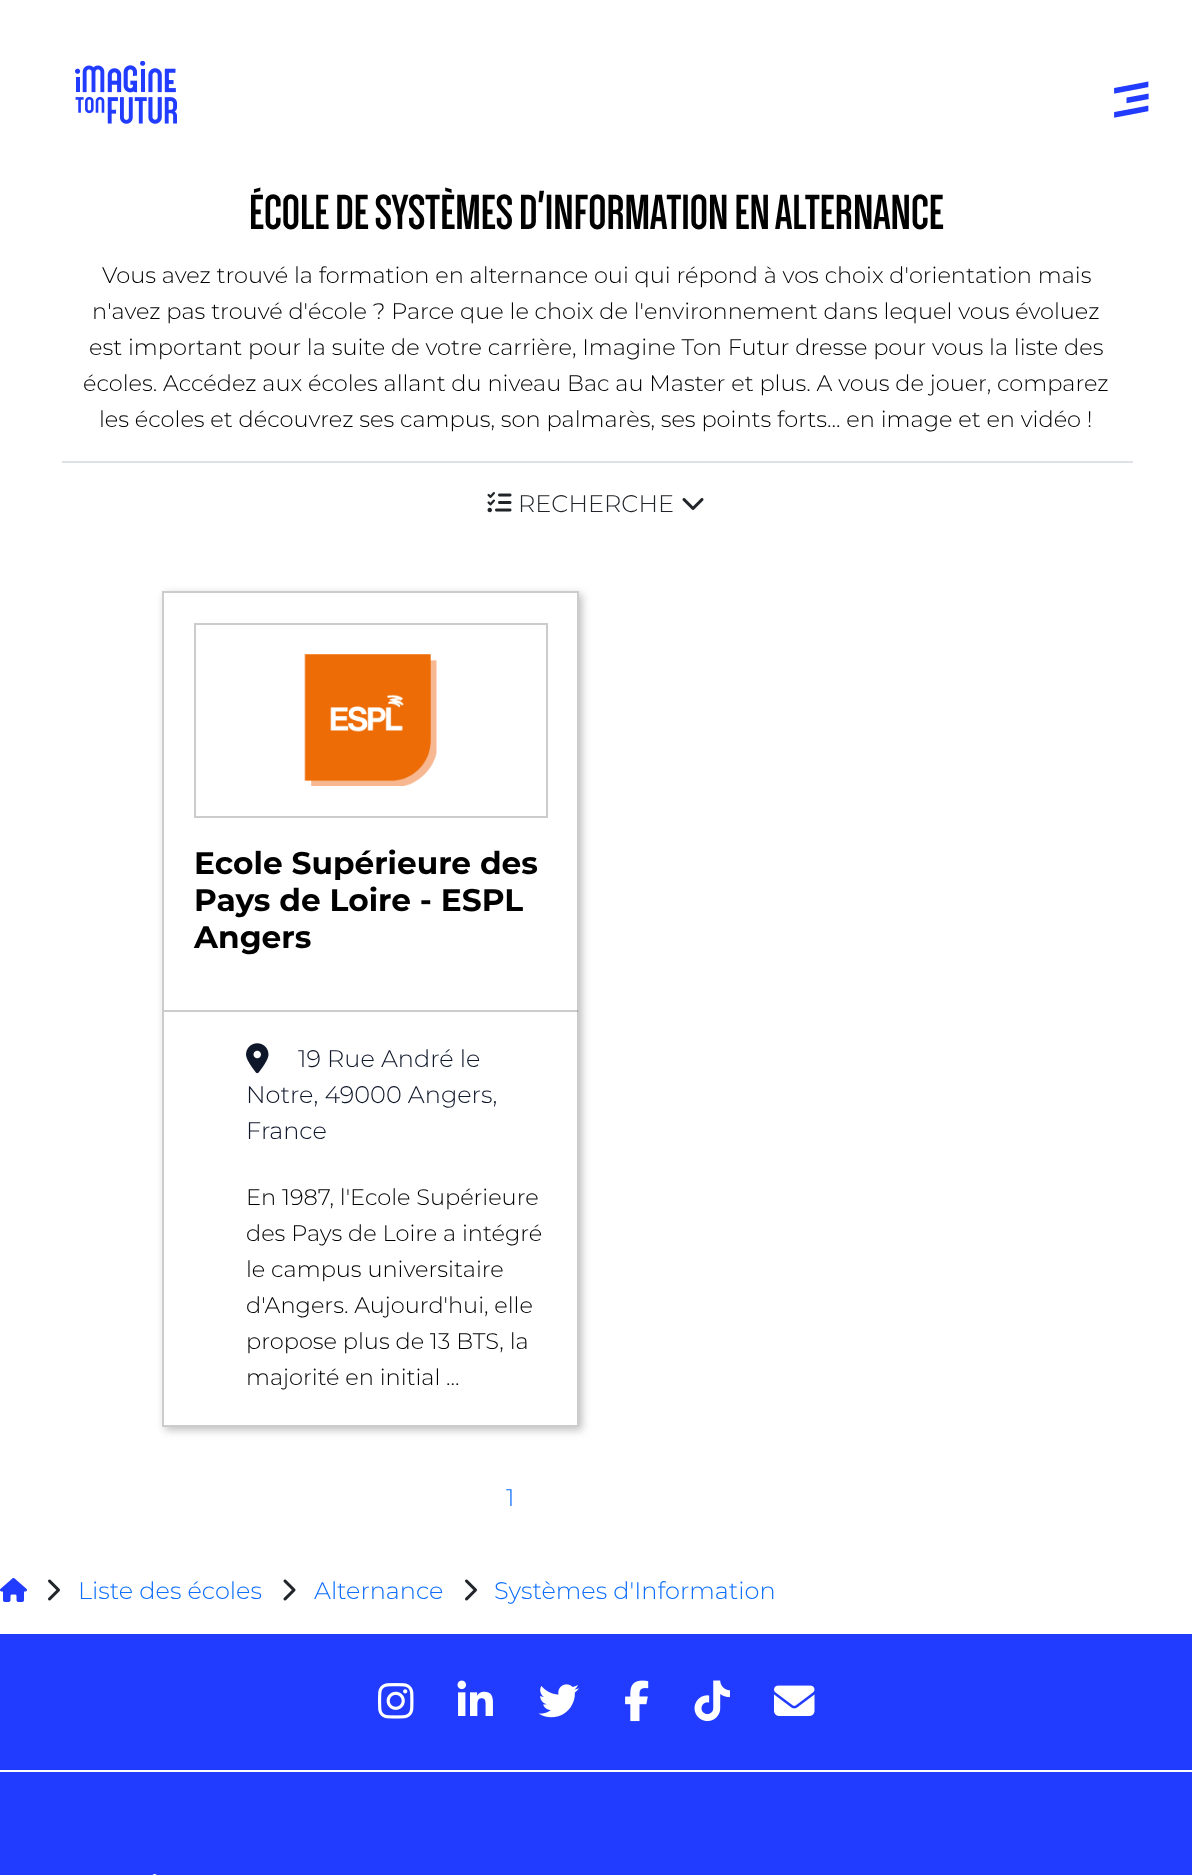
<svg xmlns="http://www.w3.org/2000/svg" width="1192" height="1875">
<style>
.a{font:bold 50.9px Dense;fill:#000}
.b{font:300 22.5px Montserrat;fill:#000}
.c{font:300 24px Montserrat;fill:#212529}
.d{font:bold 31.25px Montserrat;fill:#000}
.e{font:300 24px Montserrat;fill:#0f172a}
.f{font:300 24px Montserrat;fill:#0d6efd}
</style>
<defs>
<clipPath id="clip1"><path d="M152 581h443v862h-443zm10 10h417v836h-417z" clip-rule="evenodd"/></clipPath>
</defs>
<rect width="100%" height="100%" fill="#fff"/>
<image href="1.png" x="75" y="61" width="102" height="63"/>
<image href="2.png" x="1114" y="81" width="35" height="37"/>
<path fill="#dee2e6" d="M62 461h1071v2H62z"/>
<image href="3.png" x="487" y="492" width="25" height="21"/>
<image href="4.png" x="682" y="498" width="22" height="12"/>
<g clip-path="url(#clip1)">
<path fill="#bebebe" filter="blur(4px)" d="M165 594h417v836H165z"/>
</g>
<path fill="none" stroke="#00000033" stroke-width="2" d="M163 592h415v834H163z"/>
<path fill="#00000033" d="M164 1010h414v2H164z"/>
<path fill="none" stroke="#ccc" stroke-width="2" d="M195 624h352v193H195z"/>
<image href="5.png" x="304" y="654" width="133" height="132"/>
<image href="6.png" x="246" y="1043" width="23" height="31"/>
<image href="7.png" x="0" y="1578" width="27" height="24"/>
<image href="8.png" x="48" y="1579" width="12" height="22"/>
<image href="9.png" x="283" y="1579" width="13" height="22"/>
<image href="8.png" x="465" y="1579" width="12" height="22"/>
<path fill="#213bff" d="M0 1634h1192v241H0z"/>
<image href="10.png" x="378" y="1683" width="36" height="36"/>
<image href="11.png" x="457" y="1680" width="36" height="36"/>
<image href="12.png" x="538" y="1684" width="41" height="34"/>
<image href="13.png" x="625" y="1680" width="24" height="42"/>
<image href="14.png" x="694" y="1680" width="36" height="42"/>
<image href="15.png" x="774" y="1685" width="41" height="31"/>
<path fill="#fff" d="M0 1770h1192v2H0z"/>
<image href="16.png" x="152" y="1874" width="5" height="1"/>
<text class="a" x="249" y="229">ÉCOLE DE SYSTÈMES D'INFORMATION EN ALTERNANCE</text>
<text class="b" x="102" y="283">Vous avez trouvé la formation en alternance oui qui répond à vos choix d'orientation mais</text>
<text class="b" x="92" y="319">n'avez pas trouvé d'école ? Parce que le choix de l'environnement dans lequel vous évoluez</text>
<text class="b" x="89" y="355">est important pour la suite de votre carrière, Imagine Ton Futur dresse pour vous la liste des</text>
<text class="b" x="83" y="391">écoles. Accédez aux écoles allant du niveau Bac au Master et plus. A vous de jouer, comparez</text>
<text class="b" x="99" y="427">les écoles et découvrez ses campus, son palmarès, ses points forts... en image et en vidéo !</text>
<text class="c" x="518" y="512">RECHERCHE</text>
<text class="d" x="194" y="874">Ecole Supérieure des</text>
<text class="d" x="194" y="911">Pays de Loire - ESPL</text>
<text class="d" x="194" y="948">Angers</text>
<text class="e" x="298" y="1067">19 Rue André le</text>
<text class="e" x="246" y="1103">Notre, 49000 Angers,</text>
<text class="e" x="246" y="1139">France</text>
<text class="b" x="246" y="1205">En 1987, l'Ecole Supérieure</text>
<text class="b" x="246" y="1241">des Pays de Loire a intégré</text>
<text class="b" x="246" y="1277">le campus universitaire</text>
<text class="b" x="246" y="1313">d'Angers. Aujourd'hui, elle</text>
<text class="b" x="246" y="1349">propose plus de 13 BTS, la</text>
<text class="b" x="246" y="1385">majorité en initial ...</text>
<text class="f" x="506" y="1506">1</text>
<text class="f" x="78" y="1599">Liste des écoles</text>
<text class="f" x="314" y="1599">Alternance</text>
<text class="f" x="494" y="1599">Systèmes d'Information</text>
</svg>
